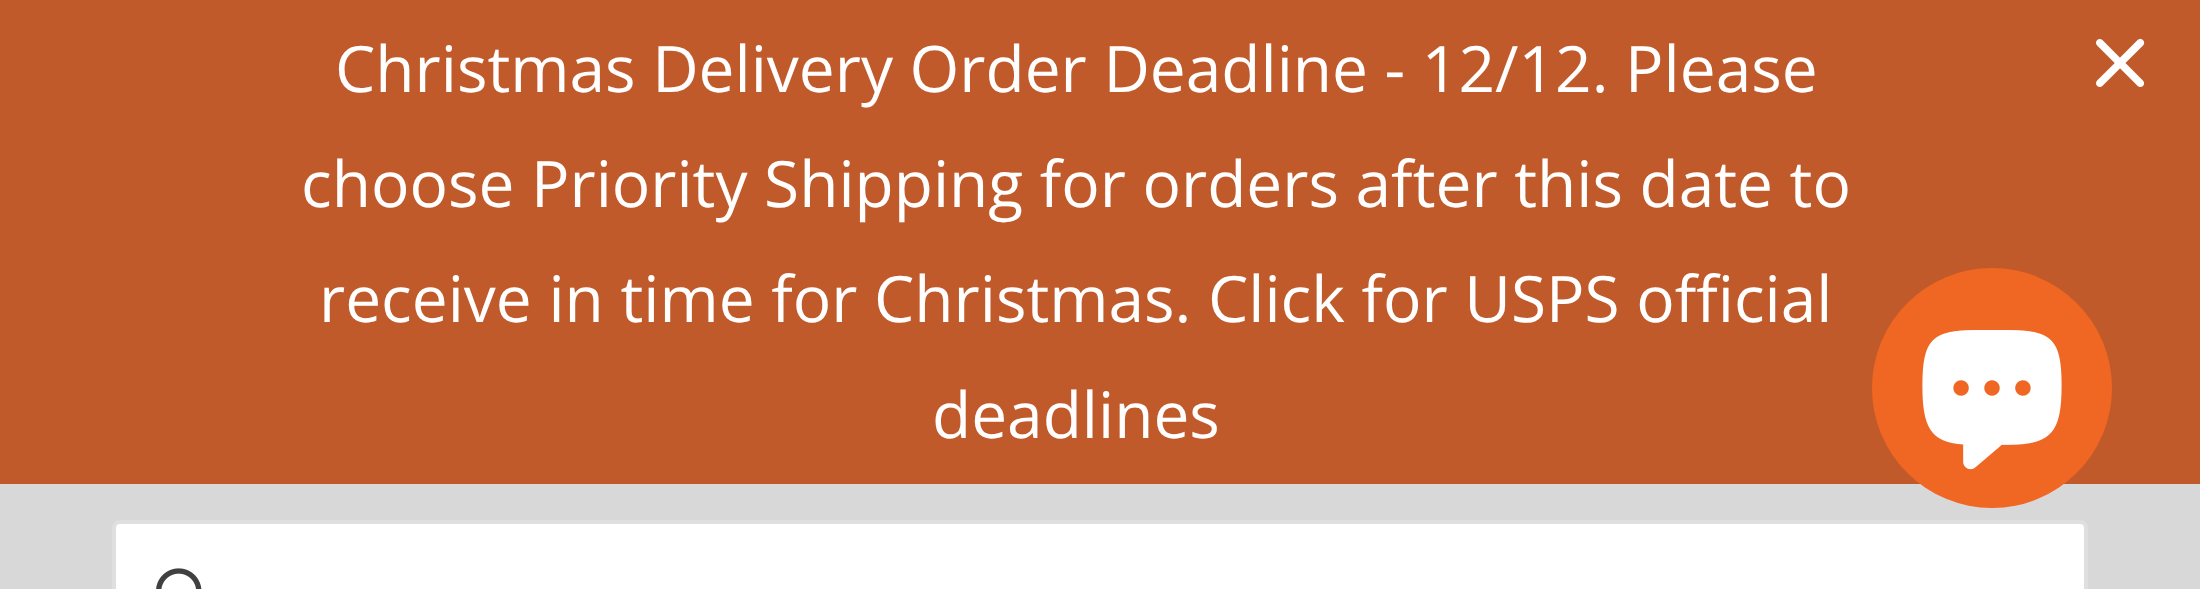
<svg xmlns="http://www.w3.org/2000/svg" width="2200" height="589">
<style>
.a{font:64px Open Sans;fill:#fff}
</style>
<rect width="100%" height="100%" fill="#c15a2b"/>
<image href="1.png" x="2096" y="39" width="49" height="48"/>
<path fill="#d8d8d8" d="M0 484h2200v105H0z"/>
<rect fill="#fff" stroke="#dfdfdf" stroke-width="4" x="114" y="522" width="1972" height="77" rx="6"/>
<image href="2.png" x="156" y="568" width="46" height="21"/>
<circle fill="#f06623" cx="1992" cy="388" r="120"/>
<image href="3.png" x="1922" y="330" width="140" height="140"/>
<text class="a" x="335" y="92">Christmas Delivery Order Deadline - 12/12. Please</text>
<text class="a" x="301" y="207">choose Priority Shipping for orders after this date to</text>
<text class="a" x="319" y="322">receive in time for Christmas. Click for USPS official</text>
<text class="a" x="932" y="438">deadlines</text>
</svg>
